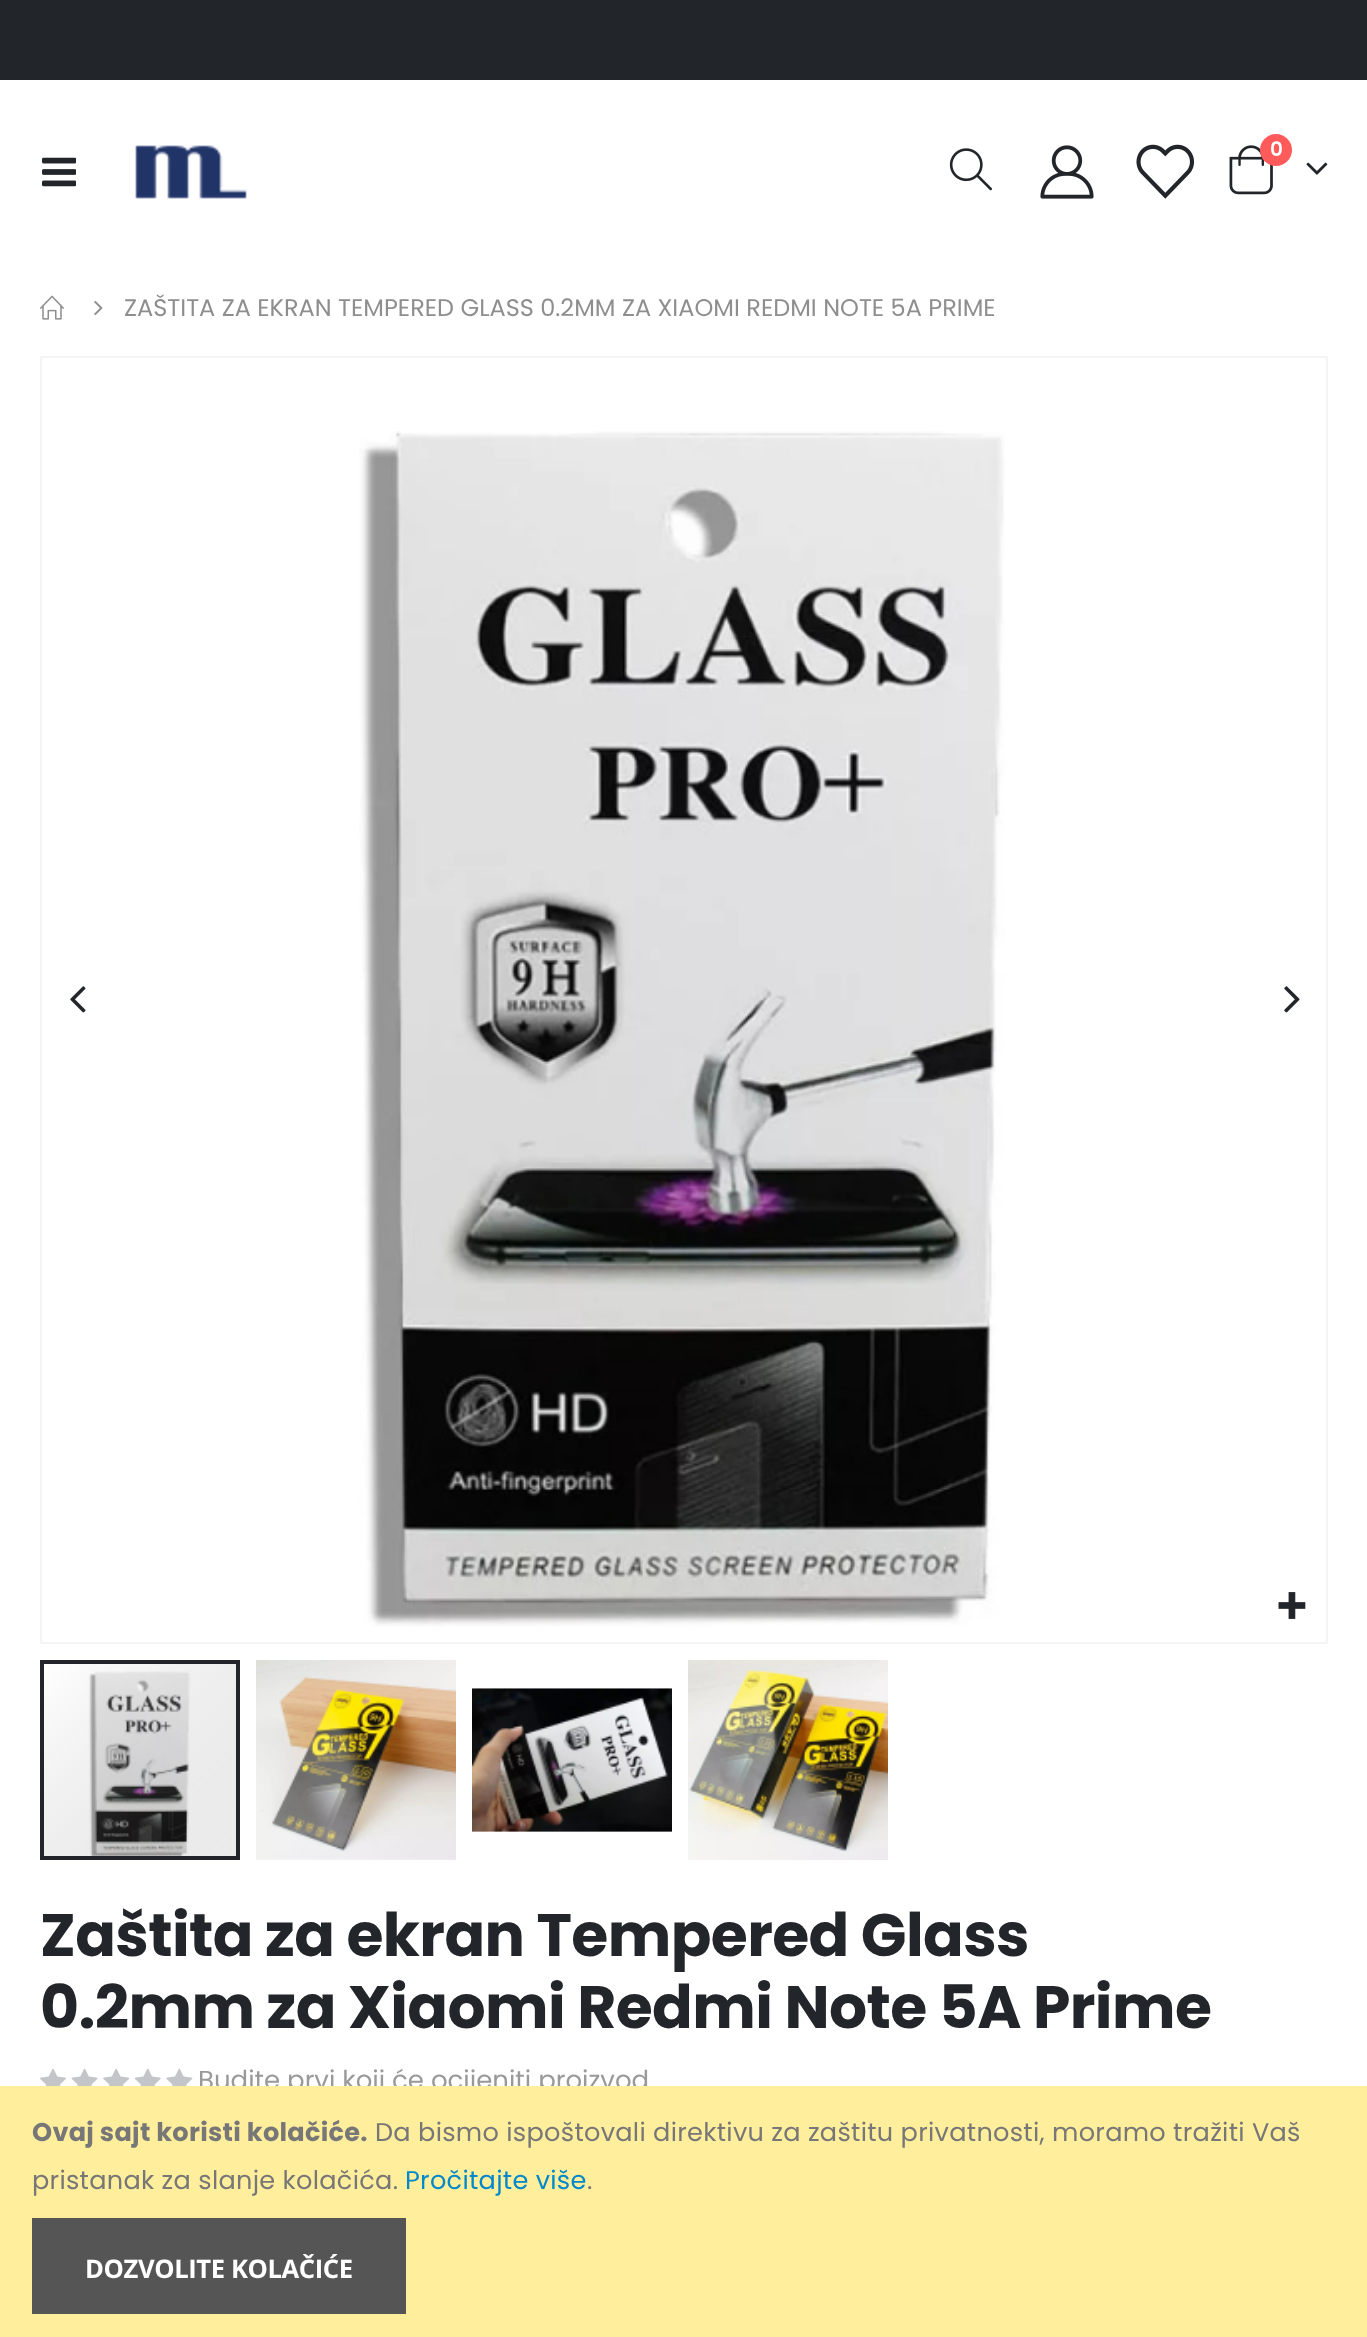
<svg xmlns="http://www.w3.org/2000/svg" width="1367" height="2337">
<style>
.a{font:600 20px Poppins;fill:#fff}
.b{font:24px Poppins;fill:#8e8e8e}
.c{font:bold 60px Poppins;letter-spacing:-0.6px;fill:#222529}
.d{font:26px Poppins;fill:#999}
.e{font:bold 25.6px Poppins;letter-spacing:0.28px;fill:#777}
.f{font:25.6px Poppins;letter-spacing:0.28px;fill:#777}
.g{font:25.6px Poppins;letter-spacing:0.28px;fill:#08c}
.h{font:bold 25.6px Open Sans;letter-spacing:-0.4px;fill:#fff}
</style>
<rect width="100%" height="100%" fill="#fff"/>
<path fill="#222529" d="M0 0h1367v80H0z"/>
<image href="1.png" x="42" y="157" width="34" height="30"/>
<image href="2.png" x="135" y="145" width="112" height="54"/>
<image href="3.png" x="949" y="148" width="43" height="43"/>
<image href="4.png" x="1040" y="145" width="54" height="54"/>
<image href="5.png" x="1136" y="144" width="59" height="55"/>
<image href="6.png" x="1229" y="145" width="44" height="50"/>
<circle fill="#ff5b5b" cx="1276" cy="150" r="16"/>
<image href="7.png" x="1306" y="162" width="22" height="13"/>
<image href="8.png" x="40" y="295" width="24" height="25"/>
<image href="9.png" x="94" y="300" width="9" height="16"/>
<path fill="none" stroke="#f4f4f4" stroke-width="2" d="M41 357h1286v1286H41z"/>
<image href="10.png" x="70" y="986" width="16" height="27"/>
<image href="11.png" x="359" y="431" width="646" height="1196"/>
<image href="12.png" x="1284" y="986" width="16" height="27"/>
<image href="13.png" x="1278" y="1592" width="28" height="27"/>
<image href="17.png" x="44" y="1664" width="192" height="192"/>
<path fill="none" stroke="#222529" stroke-width="4" d="M42 1662h196v196H42z"/>
<image href="14.png" x="256" y="1660" width="200" height="200"/>
<image href="15.png" x="472" y="1660" width="200" height="200"/>
<image href="16.png" x="688" y="1660" width="200" height="200"/>
<image href="18.png" x="40" y="2068" width="153" height="18"/>
<text class="a" x="1270" y="156">0</text>
<text class="b" x="124" y="316">ZAŠTITA ZA EKRAN TEMPERED GLASS 0.2MM ZA XIAOMI REDMI NOTE 5A PRIME</text>
<text class="c" x="40" y="1956">Zaštita za ekran Tempered Glass</text>
<text class="c" x="40" y="2028">0.2mm za Xiaomi Redmi Note 5A Prime</text>
<text class="d" x="198" y="2089">Budite prvi koji će ocijeniti proizvod</text>
<path fill="#ffee9c" d="M0 2086h1367v251H0z"/>
<text class="e" x="32" y="2141">Ovaj sajt koristi kolačiće.</text>
<text class="f" x="375" y="2141">Da bismo ispoštovali direktivu za zaštitu privatnosti, moramo tražiti Vaš</text>
<text class="f" x="32" y="2189">pristanak za slanje kolačića.</text>
<text class="g" x="405" y="2189">Pročitajte više</text>
<text class="f" x="587" y="2189">.</text>
<path fill="#555" d="M32 2218h374v96H32z"/>
<text class="h" x="85" y="2278">DOZVOLITE KOLAČIĆE</text>
</svg>
